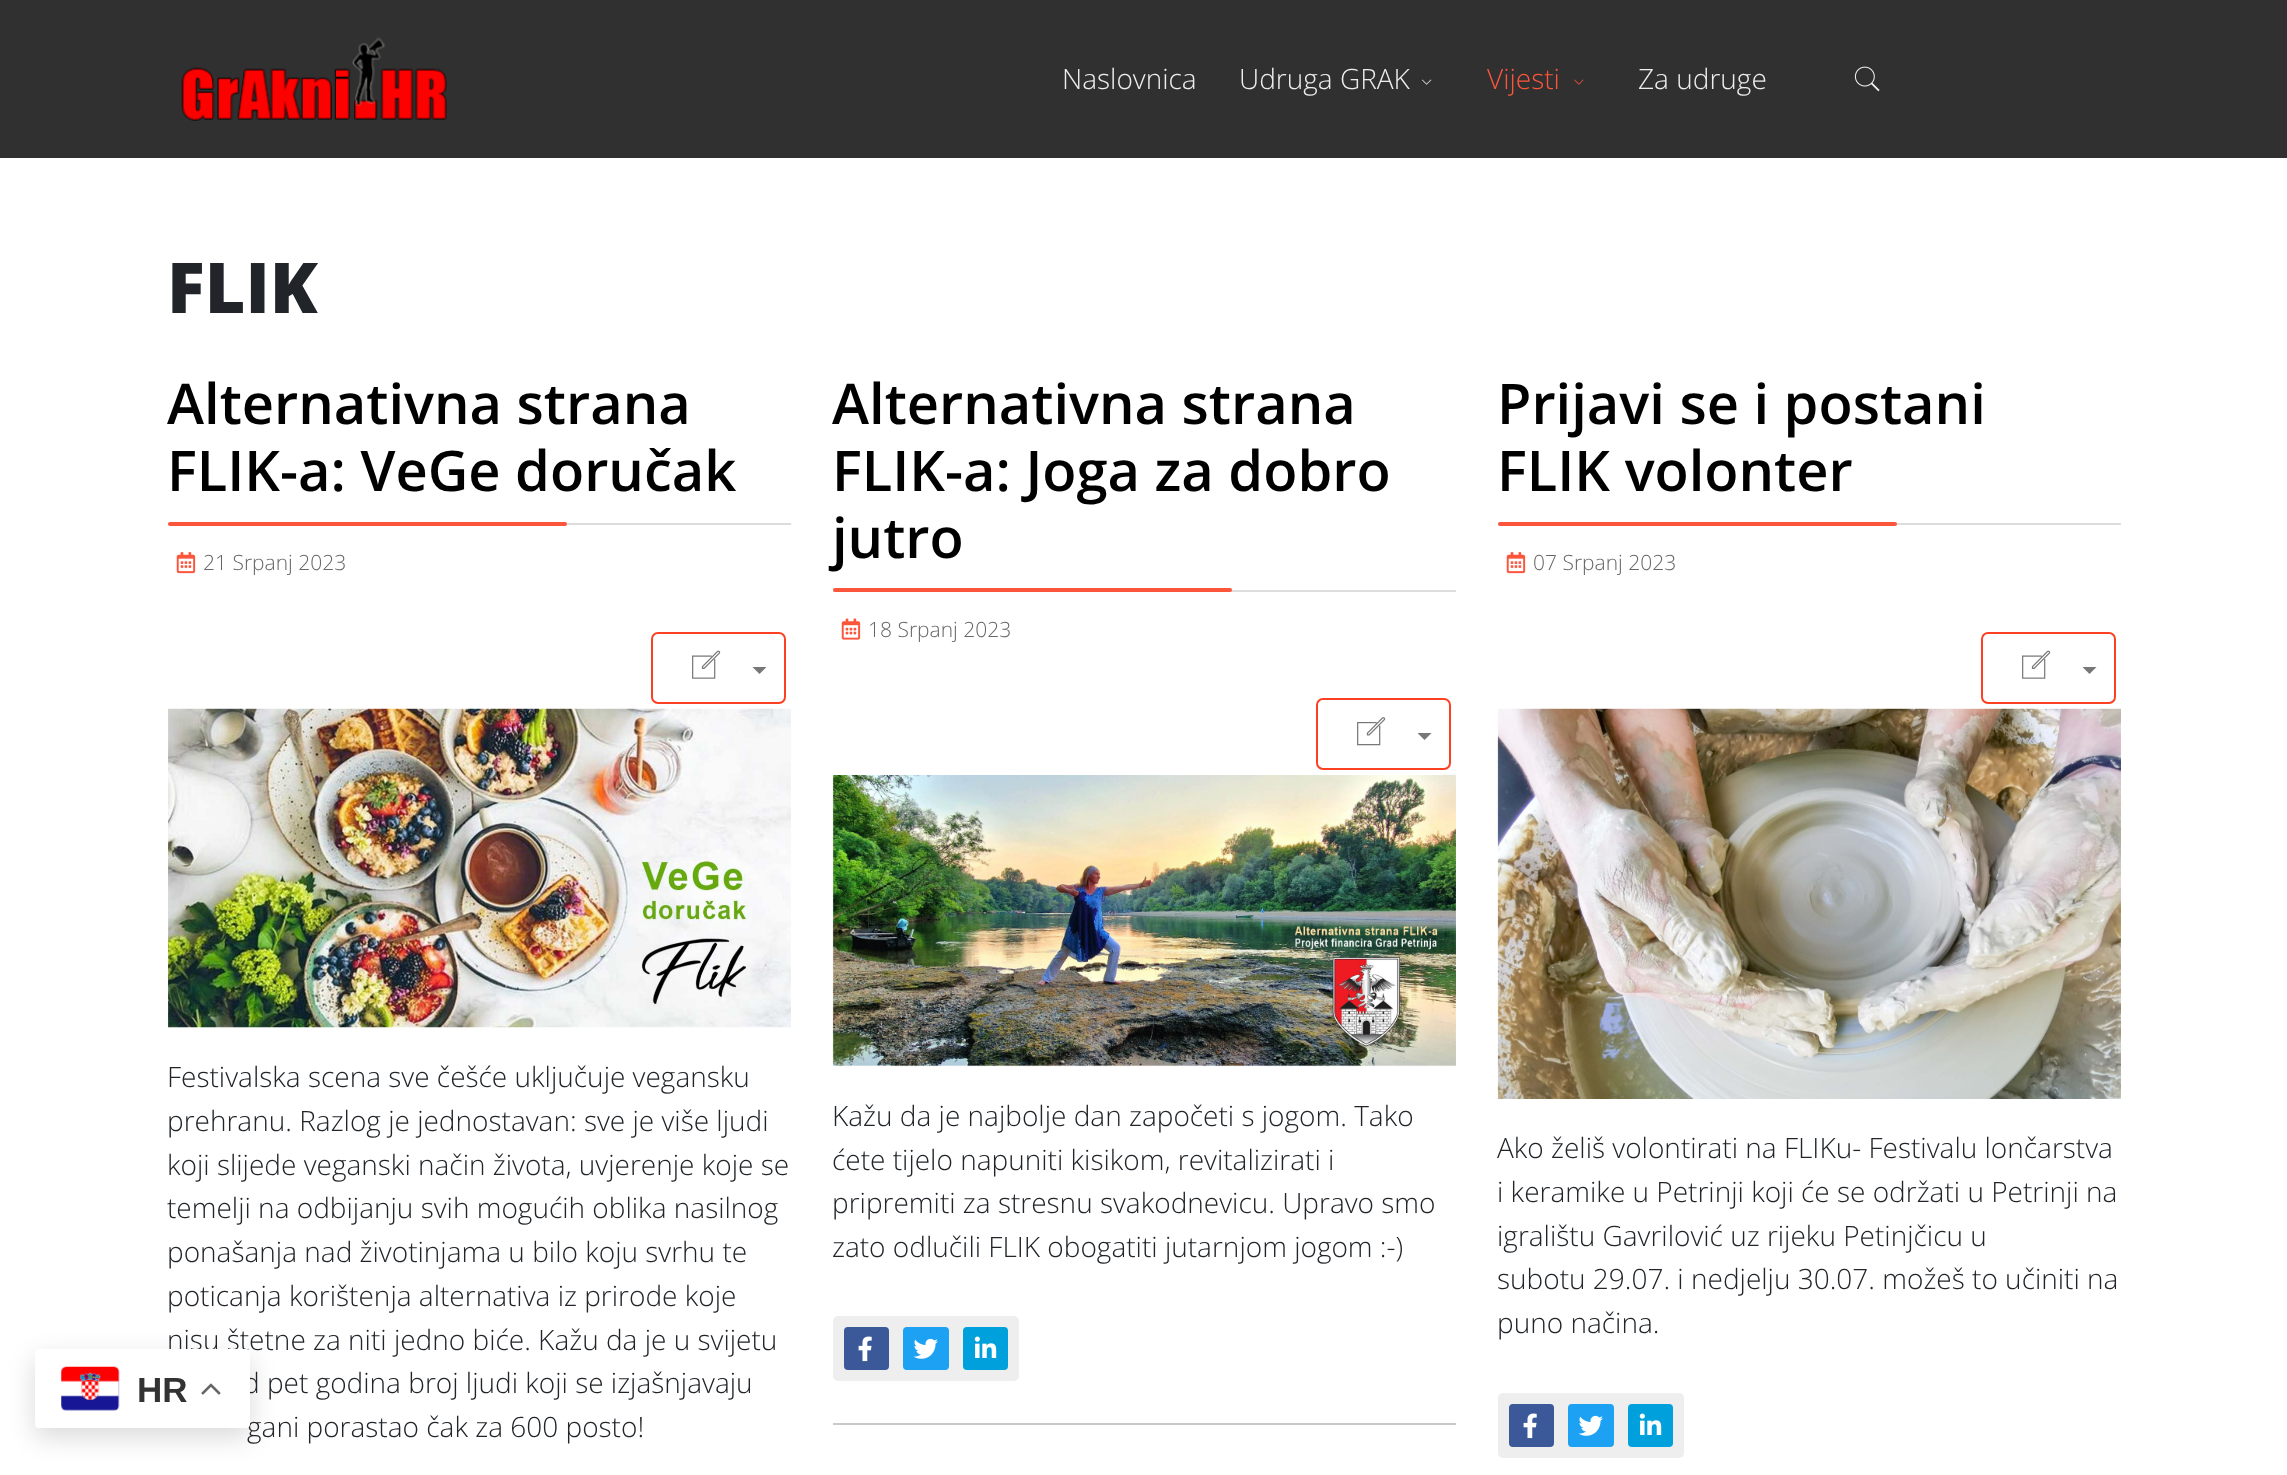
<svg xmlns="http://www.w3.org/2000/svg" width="2287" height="1475">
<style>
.a{font:300 28px Open Sans;fill:#ededed}
.b{font:300 28px Open Sans;fill:#fb553c}
.c{font:800 70px Open Sans;fill:#212529}
.d{font:600 56px Open Sans;fill:#000}
.e{font:300 21px Open Sans;fill:#666}
.f{font:300 28px Open Sans;fill:#212529}
.g{font:bold 35px Liberation Sans;fill:#333}
</style>
<rect width="100%" height="100%" fill="#fff"/>
<path fill="#303030" d="M0 0h2287v158H0z"/>
<image href="1.png" x="181" y="37" width="266" height="84"/>
<image href="2.png" x="1422" y="79" width="10" height="6"/>
<image href="3.png" x="1574" y="79" width="10" height="6"/>
<image href="4.png" x="1854" y="66" width="26" height="26"/>
<rect fill="#00000026" filter="blur(13px)" x="35" y="1358" width="215" height="79" rx="4"/>
<path fill="#ddd" d="M168 523h623v2H168z"/>
<rect fill="#fb553c" x="168" y="522" width="399" height="4" rx="2"/>
<image href="7.png" x="176" y="552" width="20" height="22"/>
<rect fill="none" stroke="#fb4023" stroke-width="2" x="652" y="633" width="133" height="70" rx="6"/>
<image href="8.png" x="692" y="650" width="29" height="29"/>
<path fill="#777" d="M752.5 667h14l-7 7z"/>
<image href="9.png" x="168" y="708" width="623" height="320"/>
<path fill="#ddd" d="M833 590h623v2H833z"/>
<rect fill="#fb553c" x="833" y="588" width="399" height="4" rx="2"/>
<image href="10.png" x="841" y="618" width="20" height="22"/>
<rect fill="none" stroke="#fb4023" stroke-width="2" x="1317" y="699" width="133" height="70" rx="6"/>
<image href="11.png" x="1357" y="717" width="29" height="29"/>
<path fill="#777" d="M1417.5 733h14l-7 7z"/>
<image href="12.png" x="832" y="775" width="624" height="292"/>
<rect fill="#eee" x="833" y="1316" width="186" height="65" rx="5"/>
<rect fill="#3b5998" x="844" y="1327" width="45" height="43" rx="4"/>
<image href="13.png" x="858" y="1336" width="14" height="26"/>
<rect fill="#1da1f2" x="903" y="1327" width="46" height="43" rx="4"/>
<image href="14.png" x="913" y="1338" width="25" height="21"/>
<rect fill="#00a0dc" x="963" y="1327" width="45" height="43" rx="4"/>
<image href="15.png" x="974" y="1336" width="23" height="22"/>
<path fill="#c8c9ca" d="M833 1423h623v2H833z"/>
<path fill="#ddd" d="M1498 523h623v2H1498z"/>
<rect fill="#fb553c" x="1498" y="522" width="399" height="4" rx="2"/>
<image href="7.png" x="1506" y="552" width="20" height="22"/>
<rect fill="none" stroke="#fb4023" stroke-width="2" x="1982" y="633" width="133" height="70" rx="6"/>
<image href="8.png" x="2022" y="650" width="29" height="29"/>
<path fill="#777" d="M2082.5 667h14l-7 7z"/>
<image href="16.png" x="1497" y="708" width="624" height="391"/>
<rect fill="#eee" x="1498" y="1393" width="186" height="65" rx="5"/>
<rect fill="#3b5998" x="1509" y="1404" width="45" height="43" rx="4"/>
<image href="13.png" x="1523" y="1413" width="14" height="26"/>
<rect fill="#1da1f2" x="1568" y="1404" width="46" height="43" rx="4"/>
<image href="14.png" x="1578" y="1415" width="25" height="21"/>
<rect fill="#00a0dc" x="1628" y="1404" width="45" height="43" rx="4"/>
<image href="15.png" x="1639" y="1413" width="23" height="22"/>
<text class="a" x="1062" y="89">Naslovnica</text>
<text class="a" x="1239" y="89">Udruga GRAK</text>
<text class="b" x="1487" y="89">Vijesti</text>
<text class="a" x="1638" y="89">Za udruge</text>
<text class="c" x="167" y="313">FLIK</text>
<text class="d" x="167" y="424">Alternativna strana</text>
<text class="d" x="167" y="491">FLIK-a: VeGe doručak</text>
<text class="e" x="203" y="570">21 Srpanj 2023</text>
<text class="f" x="167" y="1087">Festivalska scena sve češće uključuje vegansku</text>
<text class="f" x="167" y="1131">prehranu. Razlog je jednostavan: sve je više ljudi</text>
<text class="f" x="167" y="1175">koji slijede veganski način života, uvjerenje koje se</text>
<text class="f" x="167" y="1218">temelji na odbijanju svih mogućih oblika nasilnog</text>
<text class="f" x="167" y="1262">ponašanja nad životinjama u bilo koju svrhu te</text>
<text class="f" x="167" y="1306">poticanja korištenja alternativa iz prirode koje</text>
<text class="f" x="167" y="1350">nisu štetne za niti jedno biće. Kažu da je u svijetu</text>
<text class="f" x="243" y="1393">d pet godina broj ljudi koji se izjašnjavaju</text>
<text class="f" x="247" y="1437">gani porastao čak za 600 posto!</text>
<rect fill="#fff" x="35" y="1349" width="215" height="79" rx="4"/>
<image href="6.png" x="201" y="1383" width="20" height="12"/>
<text class="g" x="137" y="1402">HR</text>
<image href="5.png" x="61" y="1366" width="59" height="45"/>
<text class="d" x="832" y="424">Alternativna strana</text>
<text class="d" x="832" y="491">FLIK-a: Joga za dobro</text>
<text class="d" x="832" y="558">jutro</text>
<text class="e" x="868" y="637">18 Srpanj 2023</text>
<text class="f" x="832" y="1126">Kažu da je najbolje dan započeti s jogom. Tako</text>
<text class="f" x="832" y="1170">ćete tijelo napuniti kisikom, revitalizirati i</text>
<text class="f" x="832" y="1213">pripremiti za stresnu svakodnevicu. Upravo smo</text>
<text class="f" x="832" y="1257">zato odlučili FLIK obogatiti jutarnjom jogom :-)</text>
<text class="d" x="1497" y="424">Prijavi se i postani</text>
<text class="d" x="1497" y="491">FLIK volonter</text>
<text class="e" x="1533" y="570">07 Srpanj 2023</text>
<text class="f" x="1497" y="1158">Ako želiš volontirati na FLIKu- Festivalu lončarstva</text>
<text class="f" x="1497" y="1202">i keramike u Petrinji koji će se održati u Petrinji na</text>
<text class="f" x="1497" y="1246">igralištu Gavrilović uz rijeku Petinjčicu u</text>
<text class="f" x="1497" y="1289">subotu 29.07. i nedjelju 30.07. možeš to učiniti na</text>
<text class="f" x="1497" y="1333">puno načina.</text>
</svg>
